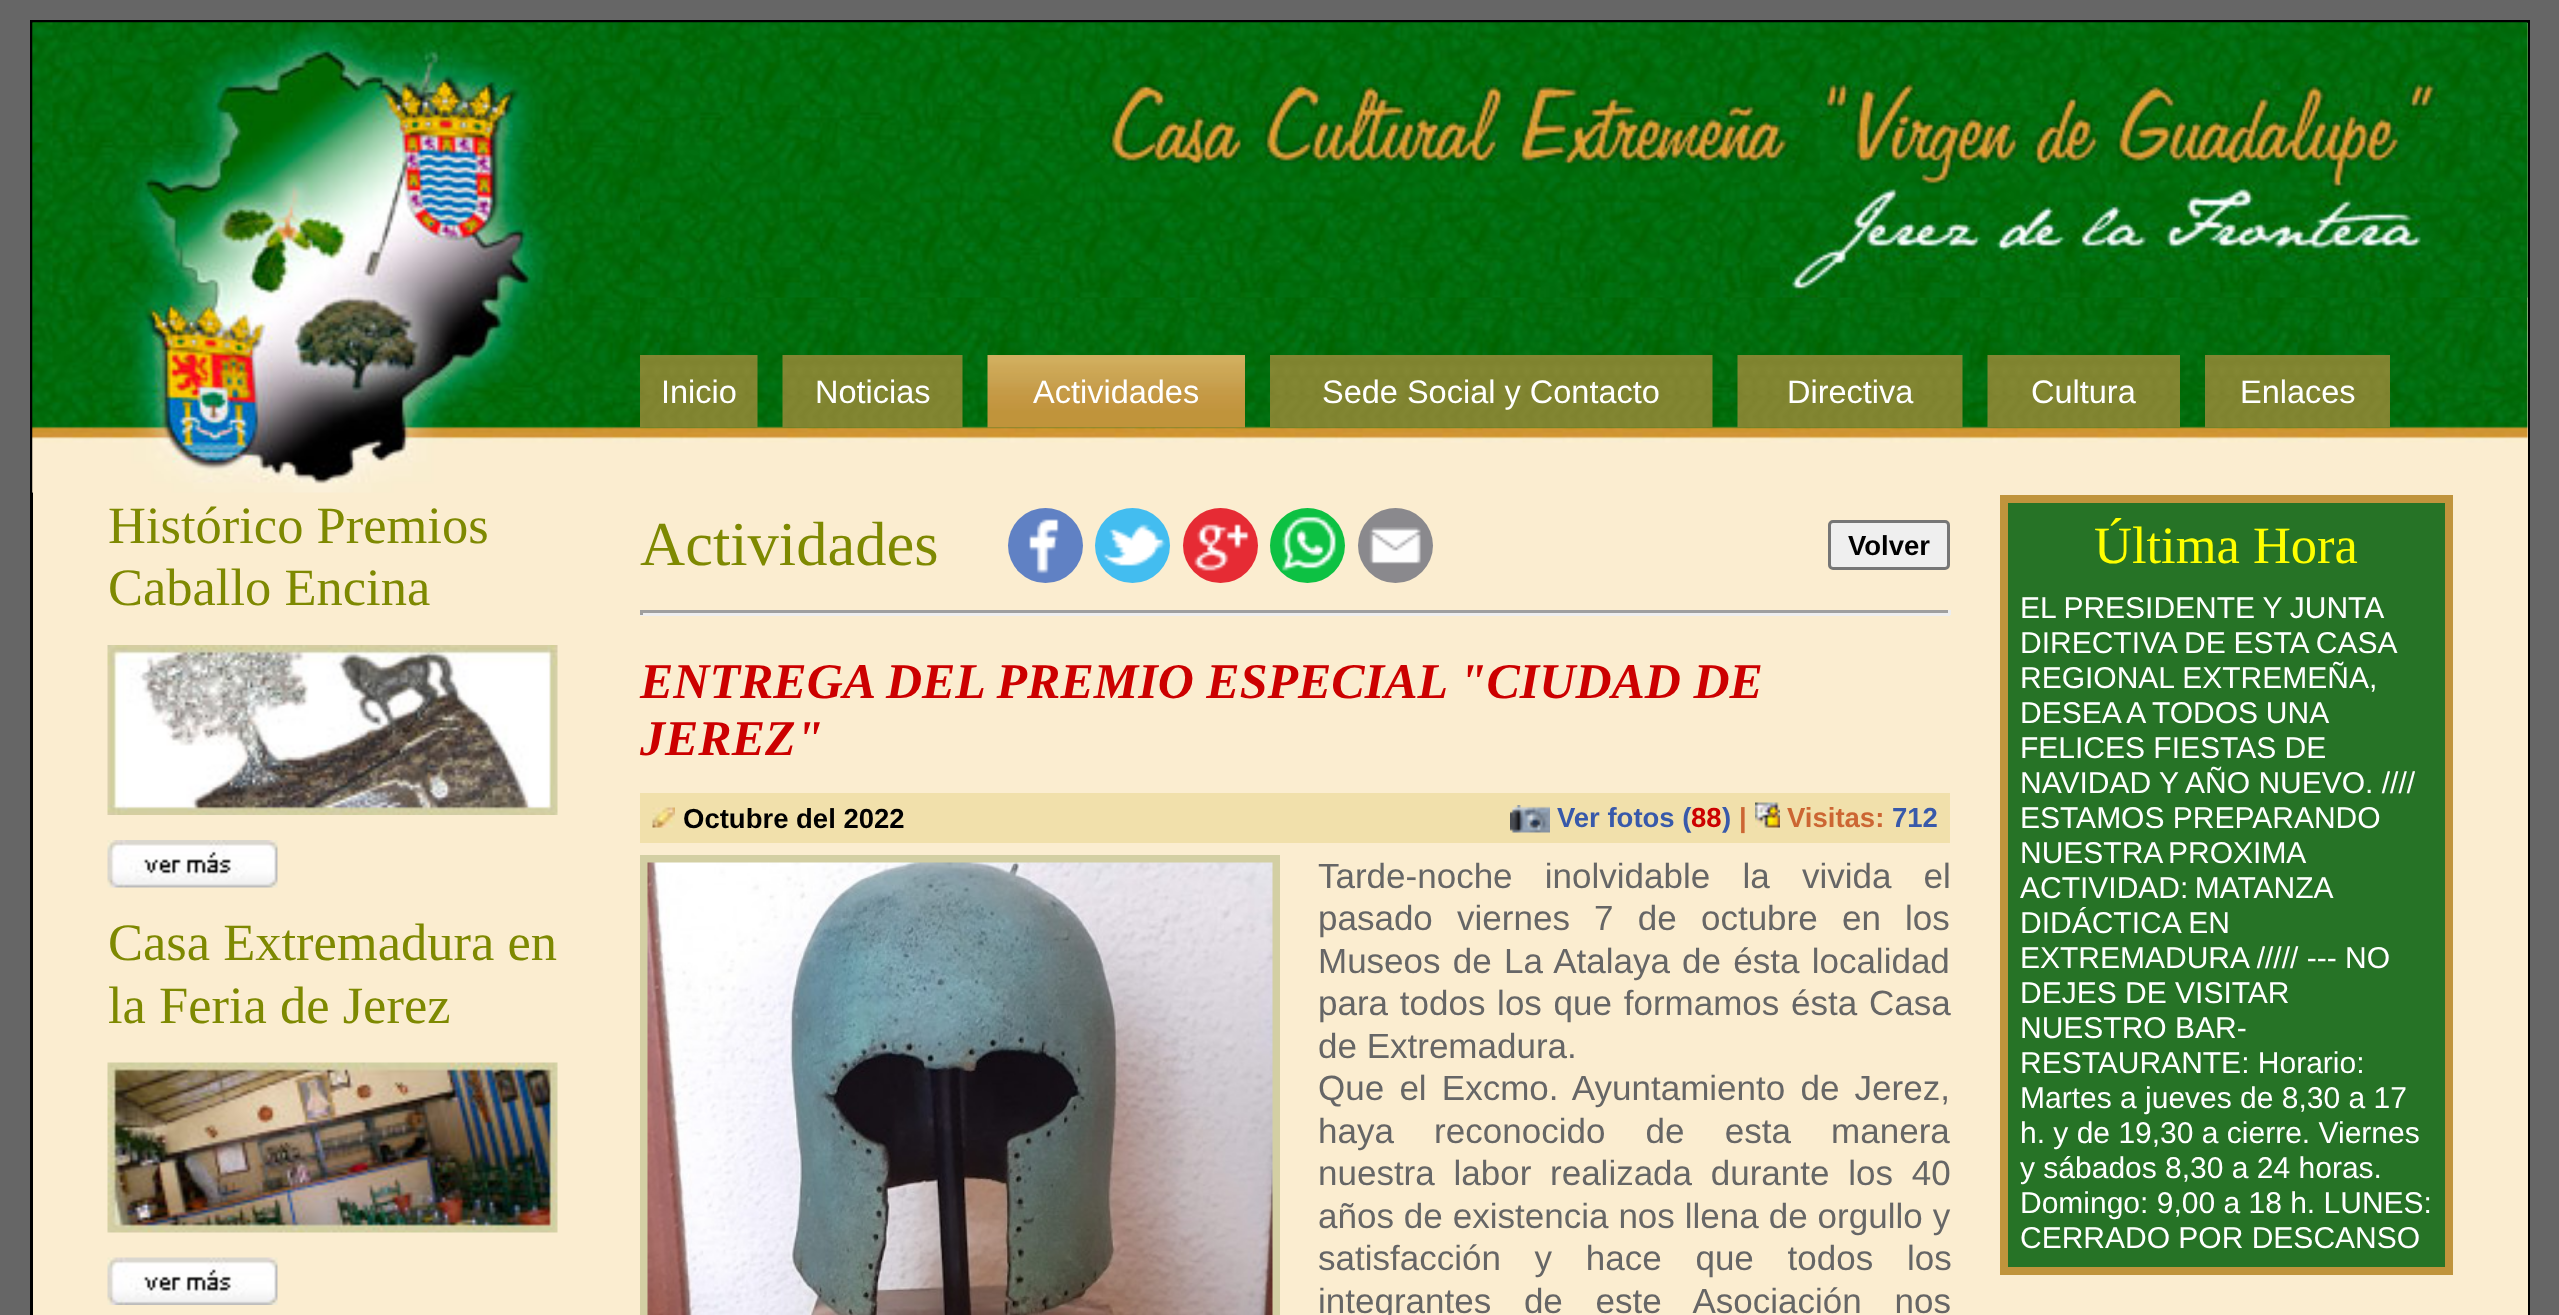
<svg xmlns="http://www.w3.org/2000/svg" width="2559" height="1315">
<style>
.a{font:32.5px Liberation Sans;fill:#fff}
.b{font:52.5px Liberation Serif;fill:#7e8901}
.c{font:62.5px Liberation Serif;fill:#7e8901}
.d{font:bold 27.5px Liberation Sans;fill:#000}
.e{font:italic bold 50px Liberation Serif;fill:#c00}
.f{font:bold 27.5px Liberation Sans;fill:#3859aa}
.g{font:bold 27.5px Liberation Sans;fill:#c00}
.h{font:bold 27.5px Liberation Sans;fill:#c63}
.i{font:35px Liberation Sans;fill:#666}
.j{font:52.5px Liberation Serif;fill:#ff0}
.k{font:30px Liberation Sans;fill:#fff}
</style>
<rect width="100%" height="100%" fill="#666"/>
<path fill="none" stroke="#000" stroke-width="3" d="M31.5 21.5h2497v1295H31.5z"/>
<path fill="#fbedd0" d="M33 23h2495v472H33z"/>
<image href="1.png" x="32" y="22" width="2496" height="471"/>
<image href="2.png" x="32" y="22" width="608" height="471"/>
<image href="3.png" x="640" y="22" width="1888" height="276"/>
<image href="4.png" x="640" y="355" width="118" height="73"/>
<image href="5.png" x="782" y="355" width="181" height="73"/>
<image href="6.png" x="987" y="355" width="258" height="73"/>
<image href="7.png" x="1270" y="355" width="443" height="73"/>
<image href="8.png" x="1737" y="355" width="226" height="73"/>
<image href="9.png" x="1987" y="355" width="193" height="73"/>
<image href="10.png" x="2205" y="355" width="185" height="73"/>
<path fill="#fbedd0" d="M33 495h2495v820H33z"/>
<image href="11.png" x="107" y="645" width="451" height="170"/>
<image href="12.png" x="107" y="840" width="171" height="48"/>
<image href="13.png" x="107" y="1062" width="451" height="171"/>
<image href="14.png" x="107" y="1257" width="171" height="48"/>
<circle fill="#6081c4" cx="1045.5" cy="545.5" r="37.5"/>
<image href="15.png" x="1029" y="519" width="30" height="55"/>
<circle fill="#43bdf0" cx="1132.5" cy="545.5" r="37.5"/>
<image href="16.png" x="1102" y="524" width="64" height="42"/>
<circle fill="#e62b34" cx="1220.5" cy="545.5" r="37.5"/>
<image href="17.png" x="1194" y="524" width="55" height="47"/>
<circle fill="#0dc143" cx="1307.5" cy="545.5" r="37.5"/>
<image href="18.png" x="1281" y="516" width="55" height="55"/>
<circle fill="#8a898d" cx="1395.5" cy="545.5" r="37.5"/>
<image href="19.png" x="1369" y="527" width="52" height="37"/>
<rect fill="#efefef" stroke="#767676" stroke-width="3" x="1829.5" y="521.5" width="119" height="47" rx="3.5"/>
<path fill="#9f9f9f" d="M640 610h1310v3H640z"/>
<path fill="#eee" d="M1948 610h3v5H1948z"/>
<path fill="#eee" d="M640 613h1310v3H640z"/>
<path fill="#9f9f9f" d="M640 610h3v5H640z"/>
<path fill="#f1e0ab" d="M640 793h1310v50H640z"/>
<image href="20.png" x="652" y="807" width="23" height="21"/>
<image href="21.png" x="1510" y="805" width="40" height="28"/>
<image href="22.png" x="1755" y="802" width="25" height="26"/>
<path fill="none" stroke="#d3cfa3" stroke-width="8" d="M644 859h632v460H644z"/>
<image href="23.png" x="647" y="862" width="626" height="453"/>
<path fill="#267326" stroke="#c0943c" stroke-width="8" d="M2004 499h445v772H2004z"/>
<text class="a" x="661" y="403">Inicio</text>
<text class="a" x="815" y="403">Noticias</text>
<text class="a" x="1033" y="403">Actividades</text>
<text class="a" x="1322" y="403">Sede Social y Contacto</text>
<text class="a" x="1787" y="403">Directiva</text>
<text class="a" x="2031" y="403">Cultura</text>
<text class="a" x="2240" y="403">Enlaces</text>
<text class="b" x="108" y="543">Histórico Premios</text>
<text class="b" x="108" y="605">Caballo Encina</text>
<text class="b" x="108" y="960">Casa Extremadura en</text>
<text class="b" x="108" y="1023">la Feria de Jerez</text>
<text class="c" x="640" y="565">Actividades</text>
<text class="d" x="1848" y="555">Volver</text>
<text class="e" x="640" y="698">ENTREGA DEL PREMIO ESPECIAL "CIUDAD DE</text>
<text class="e" x="640" y="755">JEREZ"</text>
<text class="d" x="683" y="828">Octubre del 2022</text>
<text class="f" x="1557" y="827">Ver fotos (</text>
<text class="g" x="1691" y="827">88</text>
<text class="f" x="1722" y="827">)</text>
<text class="h" x="1739" y="827">|</text>
<text class="h" x="1787" y="827">Visitas:</text>
<text class="f" x="1892" y="827">712</text>
<text class="i" x="1318" y="888" word-spacing="22.5">Tarde-noche inolvidable la vivida el</text>
<text class="i" x="1318" y="930" word-spacing="14.5">pasado viernes 7 de octubre en los</text>
<text class="i" x="1318" y="973" word-spacing="2.5">Museos de La Atalaya de ésta localidad</text>
<text class="i" x="1318" y="1015" word-spacing="2">para todos los que formamos ésta Casa</text>
<text class="i" x="1318" y="1058">de Extremadura.</text>
<text class="i" x="1318" y="1100" word-spacing="5.5">Que el Excmo. Ayuntamiento de Jerez,</text>
<text class="i" x="1318" y="1143" word-spacing="30.5">haya reconocido de esta manera</text>
<text class="i" x="1318" y="1185" word-spacing="9">nuestra labor realizada durante los 40</text>
<text class="i" x="1318" y="1228" word-spacing="0.25">años de existencia nos llena de orgullo y</text>
<text class="i" x="1318" y="1270" word-spacing="24">satisfacción y hace que todos los</text>
<text class="i" x="1318" y="1313" word-spacing="23">integrantes de este Asociación nos</text>
<text class="j" x="2094" y="563">Última Hora</text>
<text class="k" x="2020" y="618" word-spacing="-0.5">EL PRESIDENTE Y JUNTA</text>
<text class="k" x="2020" y="653" word-spacing="-0.5">DIRECTIVA DE ESTA CASA</text>
<text class="k" x="2020" y="688">REGIONAL EXTREMEÑA,</text>
<text class="k" x="2020" y="723" word-spacing="-0.5">DESEA A TODOS UNA</text>
<text class="k" x="2020" y="758">FELICES FIESTAS DE</text>
<text class="k" x="2020" y="793">NAVIDAD Y AÑO NUEVO. ////</text>
<text class="k" x="2020" y="828">ESTAMOS PREPARANDO</text>
<text class="k" x="2020" y="863" word-spacing="-2">NUESTRA PROXIMA</text>
<text class="k" x="2020" y="898" word-spacing="-2">ACTIVIDAD: MATANZA</text>
<text class="k" x="2020" y="933">DIDÁCTICA EN</text>
<text class="k" x="2020" y="968">EXTREMADURA ///// --- NO</text>
<text class="k" x="2020" y="1003">DEJES DE VISITAR</text>
<text class="k" x="2020" y="1038">NUESTRO BAR-</text>
<text class="k" x="2020" y="1073">RESTAURANTE: Horario:</text>
<text class="k" x="2020" y="1108">Martes a jueves de 8,30 a 17</text>
<text class="k" x="2020" y="1143">h. y de 19,30 a cierre. Viernes</text>
<text class="k" x="2020" y="1178">y sábados 8,30 a 24 horas.</text>
<text class="k" x="2020" y="1213">Domingo: 9,00 a 18 h. LUNES:</text>
<text class="k" x="2020" y="1248">CERRADO POR DESCANSO</text>
</svg>
